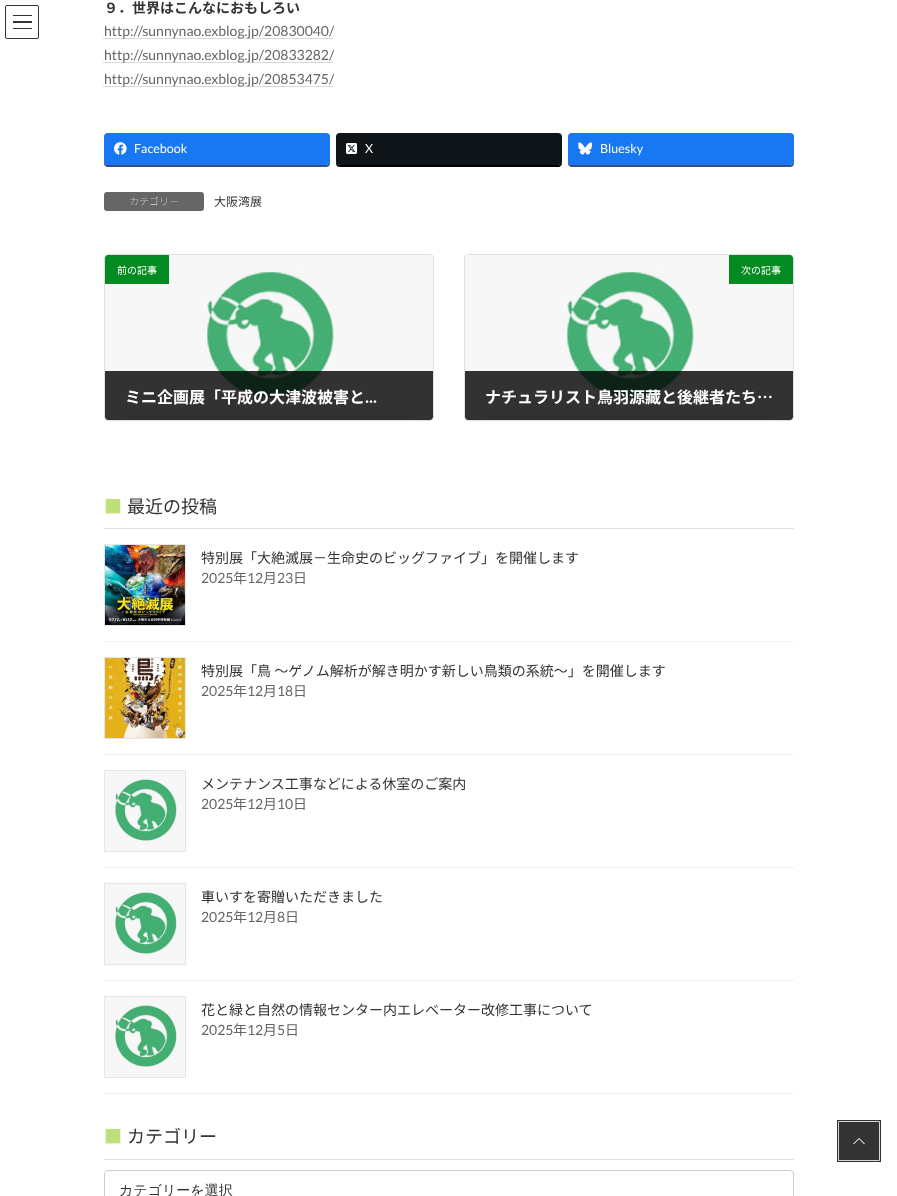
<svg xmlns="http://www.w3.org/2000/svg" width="897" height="1196">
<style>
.a{font:bold 14px Noto Sans JP;fill:#333}
.b{font:14px Lato;fill:#666}
.c{font:12.5px Lato;fill:#fff}
.d{font:100 10px Noto Sans JP;fill:#fff}
.e{font:12px Noto Sans JP;fill:#333}
.f{font:10px Noto Sans JP;fill:#fff}
.g{font:bold 16px Noto Sans JP;fill:#fff}
.h{font:18px Noto Sans JP;fill:#bde07b}
.i{font:18px Noto Sans JP;fill:#333}
.j{font:14px Noto Sans JP;fill:#333}
.k{font:14px Noto Sans JP;fill:#666}
.l{font:500 14px WenQuanYi Zen Hei;fill:#333}
</style>
<defs>
<clipPath id="clip1"><rect x="105" y="255" width="328" height="165" rx="3"/></clipPath>
<clipPath id="clip2"><rect x="465" y="255" width="328" height="165" rx="3"/></clipPath>
</defs>
<rect width="100%" height="100%" fill="#fff"/>
<path fill="#333" d="M13 15h19v1H13z"/>
<path fill="#333" d="M13 21h19v2H13z"/>
<path fill="#333" d="M13 28h19v1H13z"/>
<rect fill="none" stroke="#333" x="5.5" y="5.5" width="33" height="33" rx="1.5"/>
<path fill="none" stroke="#b3b3b3" stroke-dasharray="1 1" d="M103.5 38.5h230"/>
<path fill="none" stroke="#b3b3b3" stroke-dasharray="1 1" d="M103.5 62.5h230"/>
<path fill="none" stroke="#b3b3b3" stroke-dasharray="1 1" d="M103.5 86.5h230"/>
<path fill="#344e84" d="M104 161c0 3 0 5 3 6h219c4 0 4-3 4-6c0 2-2 4-4 4h-218c-2 0-4-2-4-4z"/>
<rect fill="#1877f2" x="104" y="133" width="226" height="32" rx="4"/>
<image href="1.png" x="114" y="142" width="13" height="13"/>
<path fill="#000" d="M336 161c0 3 0 6 4 6h219c3-1 3-3 3-6c0 2-2 4-4 4h-218c-2 0-4-2-4-4z"/>
<rect fill="#0f1419" x="336" y="133" width="226" height="32" rx="4"/>
<image href="2.png" x="346" y="143" width="12" height="11"/>
<path fill="#344e84" d="M568 161c0 3 0 5 3 6h219c4 0 4-3 4-6c0 2-2 4-4 4h-218c-2 0-4-2-4-4z"/>
<rect fill="#1877f2" x="568" y="133" width="226" height="32" rx="4"/>
<image href="3.png" x="578" y="142" width="14" height="13"/>
<rect fill="#666" x="104" y="192" width="100" height="19" rx="3"/>
<rect fill="none" stroke="#dfdfdf" x="104.5" y="254.5" width="329" height="166" rx="3.5"/>
<image href="4.png" x="105" y="255" width="328" height="165"/>
<g clip-path="url(#clip1)">
<path fill="#e5e5e5" d="M105 419h328v1H105z"/>
</g>
<path fill="#038a20" d="M108 255h61v29h-64v-26c0-1.5 1.5-3 3-3z"/>
<path fill="#000000cc" d="M105 371h328v46c0 1.5-1.5 3-3 3h-322c-1.5 0-3-1.5-3-3z"/>
<path fill="#2e2e2e" d="M125 416h288v1H125z"/>
<rect fill="none" stroke="#dfdfdf" x="464.5" y="254.5" width="329" height="166" rx="3.5"/>
<image href="5.png" x="465" y="255" width="328" height="165"/>
<g clip-path="url(#clip2)">
<path fill="#e5e5e5" d="M465 419h328v1H465z"/>
</g>
<path fill="#038a20" d="M729 255h61c1.5 0 3 1.5 3 3v26h-64z"/>
<path fill="#000000cc" d="M465 371h328v46c0 1.5-1.5 3-3 3h-322c-1.5 0-3-1.5-3-3z"/>
<path fill="#2e2e2e" d="M485 416h288v1H485z"/>
<path fill="#e0e0e0" d="M104 528h690v1H104z"/>
<path fill="#f0f0f0" d="M104 641h690v1H104z"/>
<path fill="none" stroke="#e5e5e5" d="M104.5 544.5h81v81H104.5z"/>
<image href="6.png" x="105" y="545" width="80" height="80"/>
<path fill="#f0f0f0" d="M104 754h690v1H104z"/>
<path fill="none" stroke="#e5e5e5" d="M104.5 657.5h81v81H104.5z"/>
<image href="7.png" x="105" y="658" width="80" height="80"/>
<path fill="#f0f0f0" d="M104 867h690v1H104z"/>
<path fill="none" stroke="#e5e5e5" d="M104.5 770.5h81v81H104.5z"/>
<image href="8.png" x="105" y="771" width="80" height="80"/>
<path fill="#f0f0f0" d="M104 980h690v1H104z"/>
<path fill="none" stroke="#e5e5e5" d="M104.5 883.5h81v81H104.5z"/>
<image href="9.png" x="105" y="884" width="80" height="80"/>
<path fill="#f0f0f0" d="M104 1093h690v1H104z"/>
<path fill="none" stroke="#e5e5e5" d="M104.5 996.5h81v81H104.5z"/>
<image href="10.png" x="105" y="997" width="80" height="80"/>
<path fill="#e0e0e0" d="M104 1159h690v1H104z"/>
<rect fill="none" stroke="#ccc" x="104.5" y="1170.5" width="689" height="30" rx="3.5"/>
<path fill="none" stroke="#333" stroke-width="2" d="M838 1121h42v40H838z"/>
<path fill="none" stroke="#d6d6d6" d="M838.5 1121.5h41v39H838.5z"/>
<path fill="#333" d="M839 1122h40v38H839z"/>
<image href="11.png" x="853" y="1138" width="12" height="7"/>
<text class="a" x="104" y="13">９．世界はこんなにおもしろい</text>
<text class="b" x="104" y="36">http://sunnynao.exblog.jp/20830040/</text>
<text class="b" x="104" y="60">http://sunnynao.exblog.jp/20833282/</text>
<text class="b" x="104" y="84">http://sunnynao.exblog.jp/20853475/</text>
<text class="c" x="134" y="153">Facebook</text>
<text class="c" x="365" y="153">X</text>
<text class="c" x="600" y="153">Bluesky</text>
<text class="d" x="129" y="205">カテゴリー</text>
<text class="e" x="214" y="206">大阪湾展</text>
<text class="f" x="117" y="274">前の記事</text>
<text class="g" x="125" y="403">ミニ企画展「平成の大津波被害と...</text>
<text class="f" x="741" y="274">次の記事</text>
<text class="g" x="485" y="403">ナチュラリスト鳥羽源藏と後継者たち…</text>
<text class="h" x="104" y="513">■</text>
<text class="i" x="127" y="513">最近の投稿</text>
<text class="j" x="201" y="563">特別展「大絶滅展－生命史のビッグファイブ」を開催します</text>
<text class="b" x="201" y="583">2025</text>
<text class="k" x="233" y="583">年</text>
<text class="b" x="247" y="583">12</text>
<text class="k" x="263" y="583">月</text>
<text class="b" x="277" y="583">23</text>
<text class="k" x="293" y="583">日</text>
<text class="j" x="201" y="676">特別展「鳥 ～ゲノム解析が解き明かす新しい鳥類の系統～」を開催します</text>
<text class="b" x="201" y="696">2025</text>
<text class="k" x="233" y="696">年</text>
<text class="b" x="247" y="696">12</text>
<text class="k" x="263" y="696">月</text>
<text class="b" x="277" y="696">18</text>
<text class="k" x="293" y="696">日</text>
<text class="j" x="201" y="789">メンテナンス工事などによる休室のご案内</text>
<text class="b" x="201" y="809">2025</text>
<text class="k" x="233" y="809">年</text>
<text class="b" x="247" y="809">12</text>
<text class="k" x="263" y="809">月</text>
<text class="b" x="277" y="809">10</text>
<text class="k" x="293" y="809">日</text>
<text class="j" x="201" y="902">車いすを寄贈いただきました</text>
<text class="b" x="201" y="922">2025</text>
<text class="k" x="233" y="922">年</text>
<text class="b" x="247" y="922">12</text>
<text class="k" x="263" y="922">月</text>
<text class="b" x="277" y="922">8</text>
<text class="k" x="285" y="922">日</text>
<text class="j" x="201" y="1015">花と緑と自然の情報センター内エレベーター改修工事について</text>
<text class="b" x="201" y="1035">2025</text>
<text class="k" x="233" y="1035">年</text>
<text class="b" x="247" y="1035">12</text>
<text class="k" x="263" y="1035">月</text>
<text class="b" x="277" y="1035">5</text>
<text class="k" x="285" y="1035">日</text>
<text class="h" x="104" y="1143">■</text>
<text class="i" x="127" y="1143">カテゴリー</text>
<text class="l" x="119" y="1195">カテゴリーを選択</text>
</svg>
